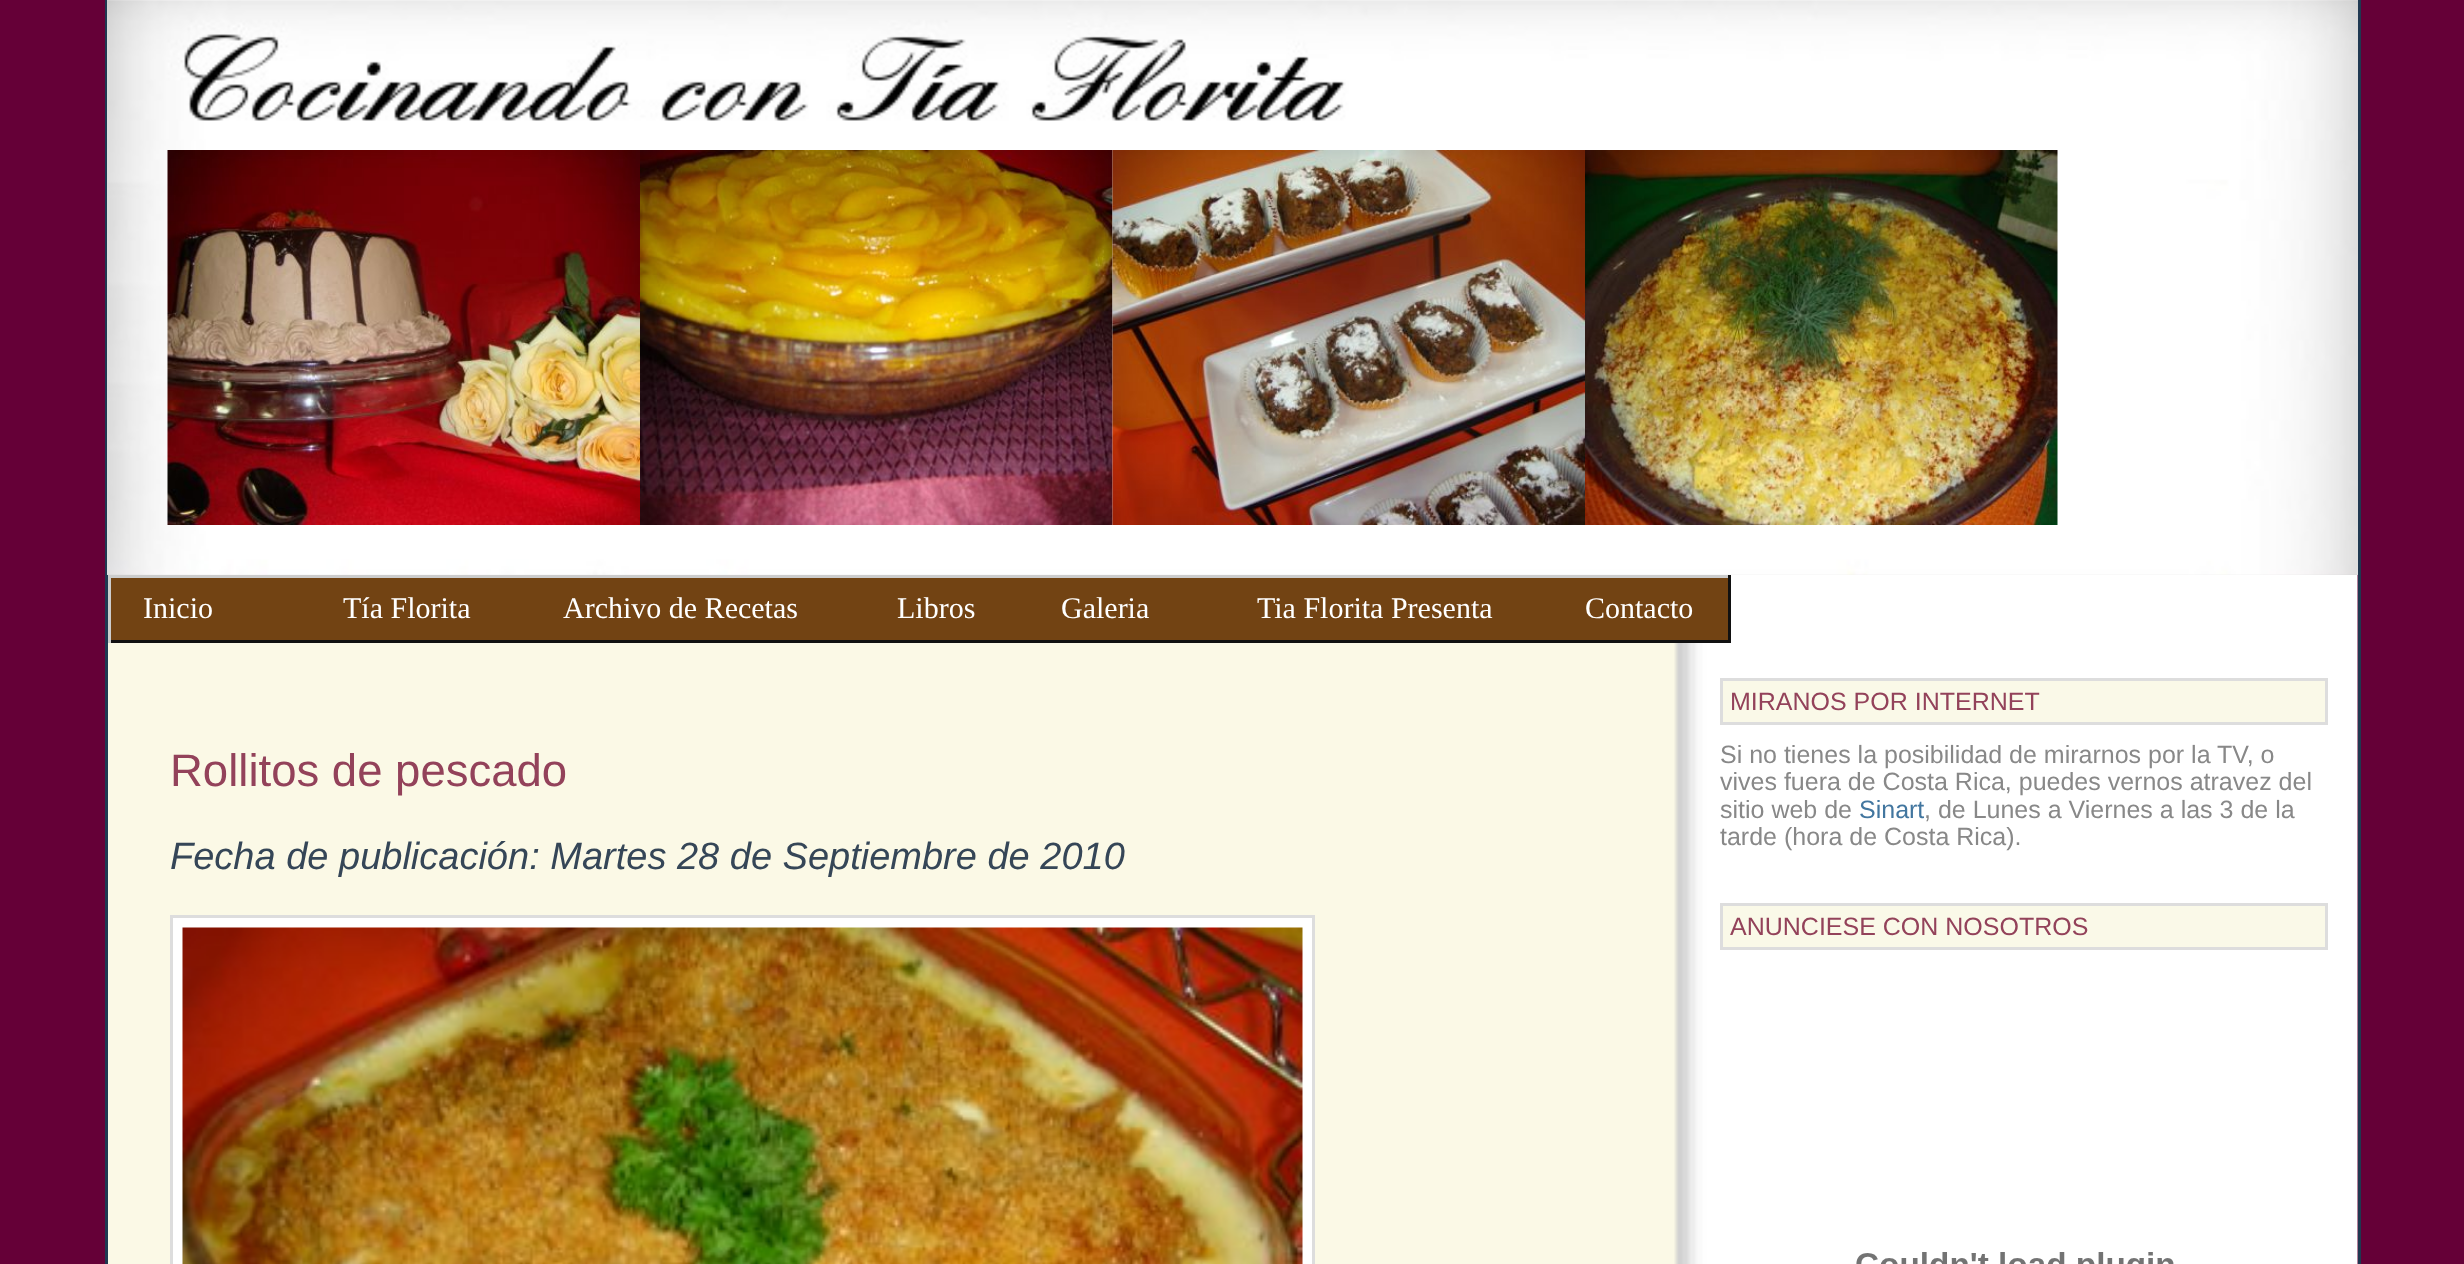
<svg xmlns="http://www.w3.org/2000/svg" width="2464" height="1264">
<style>
.a{font:30px Liberation Serif;fill:#fff}
.b{font:45.5px Liberation Sans;fill:#93425a}
.c{font:italic 38px Liberation Sans;fill:#354657}
.d{font:25px Liberation Sans;fill:#93425a}
.e{font:25px Liberation Sans;fill:#888}
.f{font:25px Liberation Sans;fill:#42769f}
</style>
<rect width="100%" height="100%" fill="#650037"/>
<image href="1.png" x="108" y="575" width="2250" height="689"/>
<path fill="#1f3851" d="M2358 0h3v1264H2358z"/>
<path fill="#1f3851" d="M105 0h3v1264H105z"/>
<image href="2.png" x="107" y="0" width="2251" height="575"/>
<image href="3.png" x="167" y="150" width="473" height="375"/>
<image href="4.png" x="640" y="150" width="473" height="375"/>
<image href="5.png" x="1112" y="150" width="473" height="375"/>
<image href="6.png" x="1585" y="150" width="473" height="375"/>
<path fill="#724313" d="M111 578h1617v62H111z"/>
<path fill="#ccc" d="M108 575h1622v3H108z"/>
<path fill="#111" d="M1728 575h3v68H1728z"/>
<path fill="#111" d="M108 640h1622v3H108z"/>
<path fill="#ccc" d="M108 575h3v68H108z"/>
<path fill="#fff" stroke="#ddd" stroke-width="3" d="M171.5 916.5h1142v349H171.5z"/>
<image href="7.png" x="182" y="927" width="1121" height="337"/>
<path fill="#faf9e8" stroke="#ddd" stroke-width="3" d="M1721.5 679.5h605v44H1721.5z"/>
<path fill="#faf9e8" stroke="#ddd" stroke-width="3" d="M1721.5 904.5h605v44H1721.5z"/>
<image href="8.png" x="1856" y="1252" width="318" height="12"/>
<text class="a" x="143" y="618">Inicio</text>
<text class="a" x="343" y="618">Tía Florita</text>
<text class="a" x="563" y="618">Archivo de Recetas</text>
<text class="a" x="897" y="618">Libros</text>
<text class="a" x="1061" y="618">Galeria</text>
<text class="a" x="1257" y="618">Tia Florita Presenta</text>
<text class="a" x="1585" y="618">Contacto</text>
<text class="b" x="170" y="786">Rollitos de pescado</text>
<text class="c" x="170" y="869">Fecha de publicación: Martes 28 de Septiembre de 2010</text>
<text class="d" x="1730" y="710">MIRANOS POR INTERNET</text>
<text class="e" x="1720" y="763">Si no tienes la posibilidad de mirarnos por la TV, o</text>
<text class="e" x="1720" y="790">vives fuera de Costa Rica, puedes vernos atravez del</text>
<text class="e" x="1720" y="818">sitio web de</text>
<text class="f" x="1859" y="818">Sinart</text>
<text class="e" x="1924" y="818">, de Lunes a Viernes a las 3 de la</text>
<text class="e" x="1720" y="845">tarde (hora de Costa Rica).</text>
<text class="d" x="1730" y="935">ANUNCIESE CON NOSOTROS</text>
</svg>
